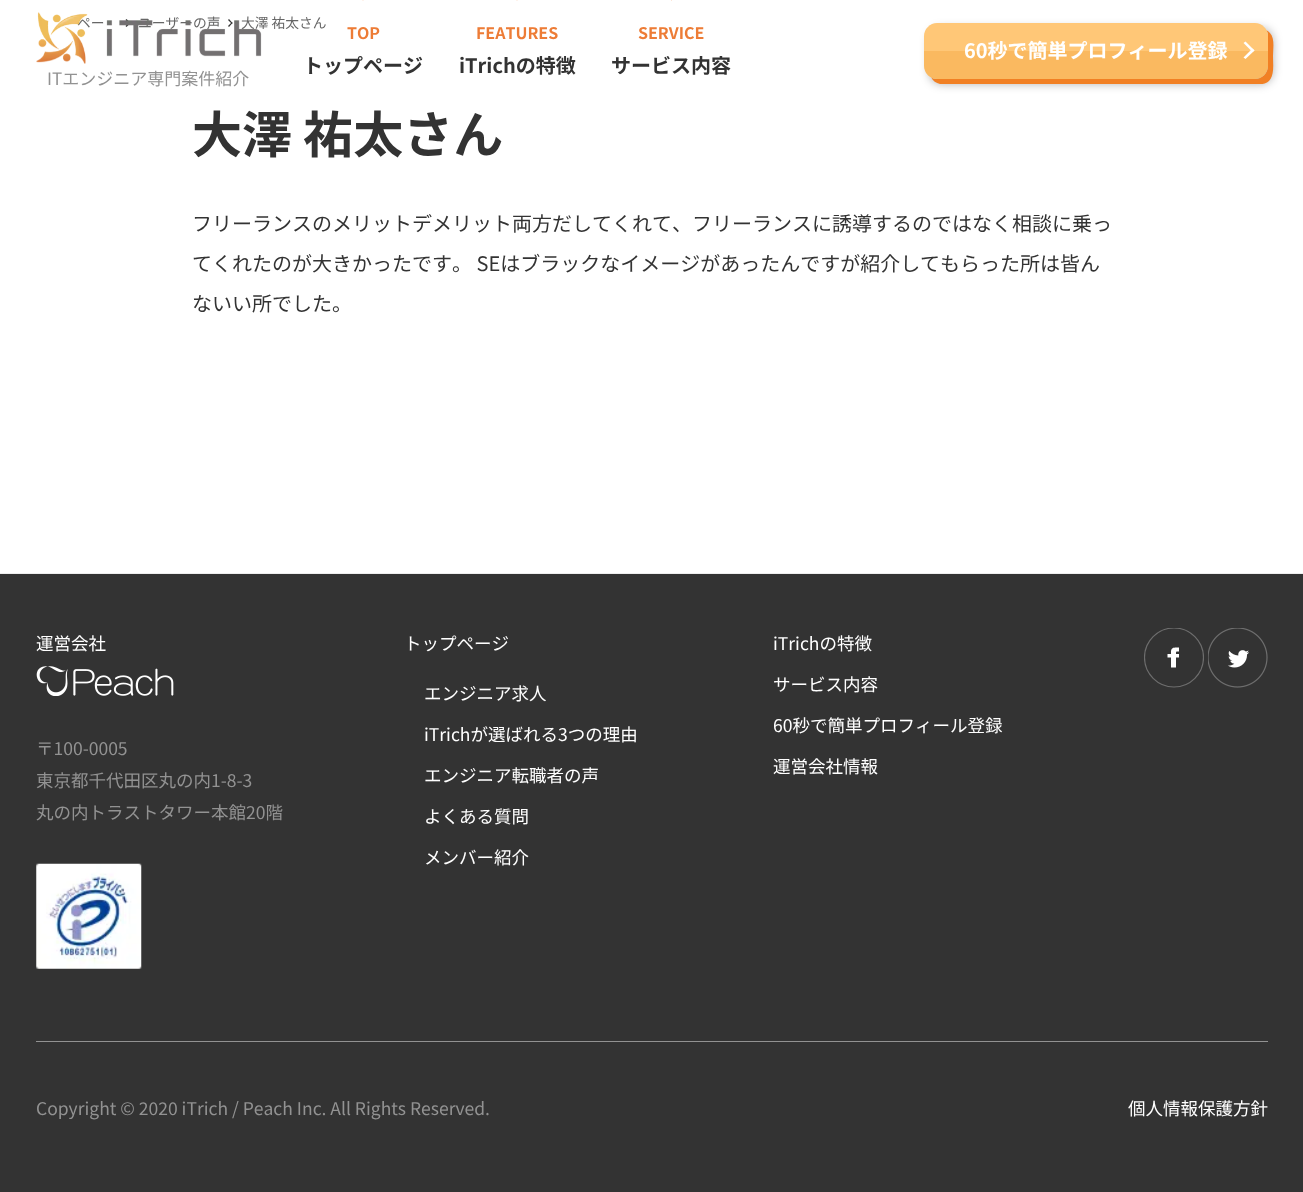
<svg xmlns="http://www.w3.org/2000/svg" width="1303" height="1192">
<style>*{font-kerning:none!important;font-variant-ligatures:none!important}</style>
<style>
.a{font:13.75px Noto Sans JP;fill:#666}
.b{font:bold 50px Noto Sans JP;fill:#333}
.c{font:20px Noto Sans JP;fill:#333}
.d{font:bold 16px Noto Sans JP;fill:#ed7c36}
.e{font:bold 20px Noto Sans JP;fill:#333}
.f{font:bold 20px Noto Sans JP;fill:#fff}
.g{font:17px Noto Sans JP;fill:#929292}
.h{font:17.5px Noto Sans JP;fill:#fff}
.i{font:17.5px Noto Sans JP;fill:#929292}
</style>
<defs>
<clipPath id="clip1"><path d="M1144 628h60v60H1144z"/></clipPath>
</defs>
<rect width="100%" height="100%" fill="#fff"/>
<path fill="#333" d="M126.5 19l4 4l-1 1l-4-4z"/>
<path fill="#333" d="M129.5 22l1 1l-4 4l-1-1z"/>
<path fill="#333" d="M229 19l3.5 4l-.5 1l-4-4z"/>
<path fill="#333" d="M232 22l.5 1l-3.5 4l-1-1z"/>
<path fill="#ed7c36" d="M363 .5l9.5-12.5h-19z"/>
<path fill="#ed7c36" d="M508-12l9 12.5l9.5-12.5z"/>
<path fill="#ed7c36" d="M671.5 .5l9.5-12.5h-19z"/>
<rect fill="#0000004d" filter="blur(5px)" x="929" y="28" width="344" height="56" rx="13"/>
<path fill="#f18024" d="M931 77c2 4 5 6 9 7h320c16 0 13-18 13-28c0-9 3-21-7-26c1 1 2 3 2 5v31c0 7-6 13-13 13h-319c-2 0-4-1-5-2z"/>
<path fill="#ffc777" d="M937 23h318c7 0 13 6 13 13v15h-344v-15c0-7 6-13 13-13z"/>
<path fill="#fab960" d="M924 51h344v15c0 7-6 13-13 13h-318c-7 0-13-6-13-13z"/>
<path fill="#fff" d="M1245.5 41.5l9 9l-2 1.5l-9-9z"/>
<path fill="#fff" d="M1252.5 48.5l2 2l-9 8.5l-2-1.5z"/>
<path fill="#eee" d="M0 573h1303v1H0z"/>
<path fill="#333" d="M0 574h1303v618H0z"/>
<image href="2.png" x="36" y="666" width="138" height="30"/>
<image href="3.png" x="36" y="863" width="106" height="106"/>
<g clip-path="url(#clip1)">
<circle fill="none" stroke="#6e6e6e" stroke-width="1.2" cx="1174" cy="657.5" r="29.5"/>
</g>
<image href="4.png" x="1208" y="628" width="60" height="60"/>
<path fill="#fff" d="M1171 654h-3.5v3.5h3.5v10h5v-10h3v-3.5h-3c0-3 0-2.5 3-2.5v-4c-3 0-8-1-8 4z"/>
<path fill="#929292" d="M36 1041h1232v1H36z"/>
<text class="a" x="77" y="28">ペー</text>
<text class="a" x="138" y="28">ユーザーの声</text>
<text class="a" x="241" y="28">大澤 祐太さん</text>
<text class="b" x="192" y="153">大澤 祐太さん</text>
<text class="c" x="192" y="231">フリーランスのメリットデメリット両方だしてくれて、フリーランスに誘導するのではなく相談に乗っ</text>
<text class="c" x="192" y="271">てくれたのが大きかったです。 SEはブラックなイメージがあったんですが紹介し</text>
<text class="c" x="920" y="271">てもらった所は皆ん</text>
<text class="c" x="192" y="311">ないい所でした。</text>
<text class="d" x="347" y="39">TOP</text>
<text class="e" x="303" y="73">トップページ</text>
<text class="d" x="476" y="39">FEATURES</text>
<text class="e" x="459" y="73">iTrichの特徴</text>
<text class="d" x="638" y="39">SERVICE</text>
<text class="e" x="611" y="73">サービス内容</text>
<text class="f" x="964" y="58">60秒で簡単プロフィール登録</text>
<image href="1.png" x="36" y="12" width="226" height="52"/>
<text class="g" x="47" y="85">ITエンジニア専門案件紹介</text>
<text class="h" x="36" y="650">運営会社</text>
<text class="i" x="36" y="755">〒100-0005</text>
<text class="i" x="36" y="787">東京都千代田区丸の内1-8-3</text>
<text class="i" x="36" y="819">丸の内トラストタワー本館20階</text>
<text class="h" x="404" y="650">トップページ</text>
<text class="h" x="424" y="700">エンジニア求人</text>
<text class="h" x="424" y="741">iTrichが選ばれる3つの理由</text>
<text class="h" x="424" y="782">エンジニア転職者の声</text>
<text class="h" x="424" y="823">よくある質問</text>
<text class="h" x="424" y="864">メンバー紹介</text>
<text class="h" x="773" y="650">iTrichの特徴</text>
<text class="h" x="773" y="691">サービス内容</text>
<text class="h" x="773" y="732">60秒で簡単プロフィール登録</text>
<text class="h" x="773" y="773">運営会社情報</text>
<text class="i" x="36" y="1115">Copyright © 2020 iTrich / Peach Inc. All Rights Reserved.</text>
<text class="h" x="1128" y="1115">個人情報保護方針</text>
</svg>
